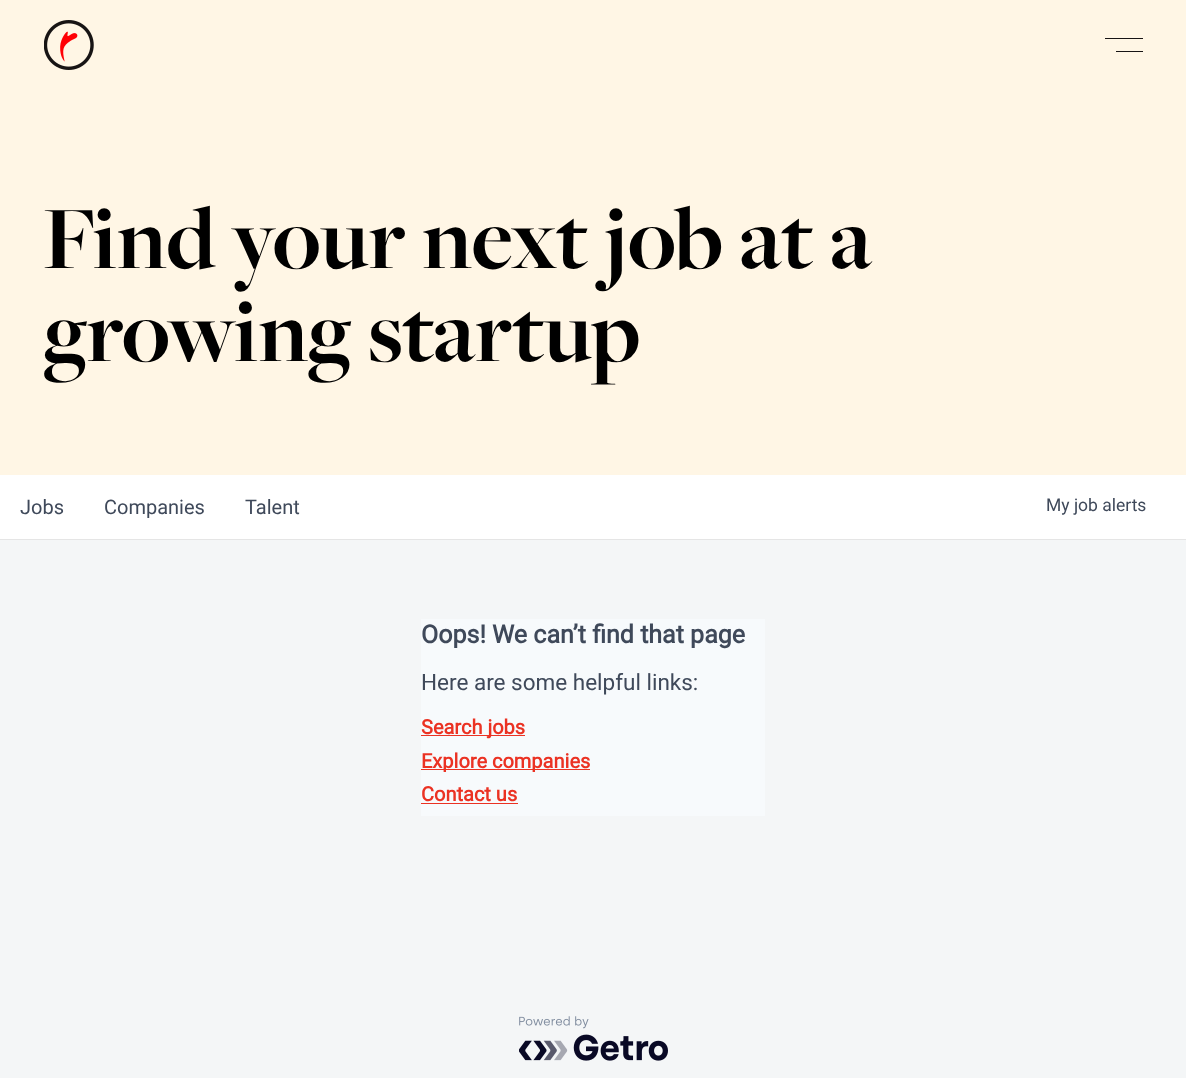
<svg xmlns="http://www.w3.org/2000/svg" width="1186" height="1078">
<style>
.a{font:bold 92.5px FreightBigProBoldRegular;fill:#000}
.b{font:20px Roboto;fill:#3f495a}
.c{font:17.5px Roboto;fill:#3f495a}
.d{font:bold 25px Roboto;fill:#3f495a}
.e{font:22.5px Roboto;fill:#3f495a}
.f{font:bold 20px Roboto;fill:#eb3223}
</style>
<rect width="100%" height="100%" fill="#f4f6f7"/>
<path fill="#fff6e5" d="M0 0h1186v475H0z"/>
<image href="1.png" x="44" y="20" width="50" height="50"/>
<path fill="#171414" d="M1105 38h38v1H1105z"/>
<path fill="#171414" d="M1116 51h27v1H1116z"/>
<path fill="#e5e5e5" d="M0 539h1186v1H0z"/>
<path fill="#fff" d="M0 475h1186v64H0z"/>
<path fill="#f7fafc" d="M421 619h344v197H421z"/>
<path fill="#eb3223" d="M421 735h104v1H421z"/>
<path fill="#eb3223" d="M421 769h169v1H421z"/>
<path fill="#eb3223" d="M421 803h97v1H421z"/>
<image href="2.png" x="519" y="1016" width="149" height="45"/>
<text class="a" x="43" y="268">Find your next job at a</text>
<text class="a" x="43" y="361">growing startup</text>
<text class="b" x="20" y="514">Jobs</text>
<text class="b" x="104" y="514">Companies</text>
<text class="b" x="245" y="514">Talent</text>
<text class="c" x="1046" y="511">My job alerts</text>
<text class="d" x="421" y="643">Oops! We can’t find that page</text>
<text class="e" x="421" y="690">Here are some helpful links:</text>
<text class="f" x="421" y="734">Search jobs</text>
<text class="f" x="421" y="768">Explore companies</text>
<text class="f" x="421" y="801">Contact us</text>
</svg>
